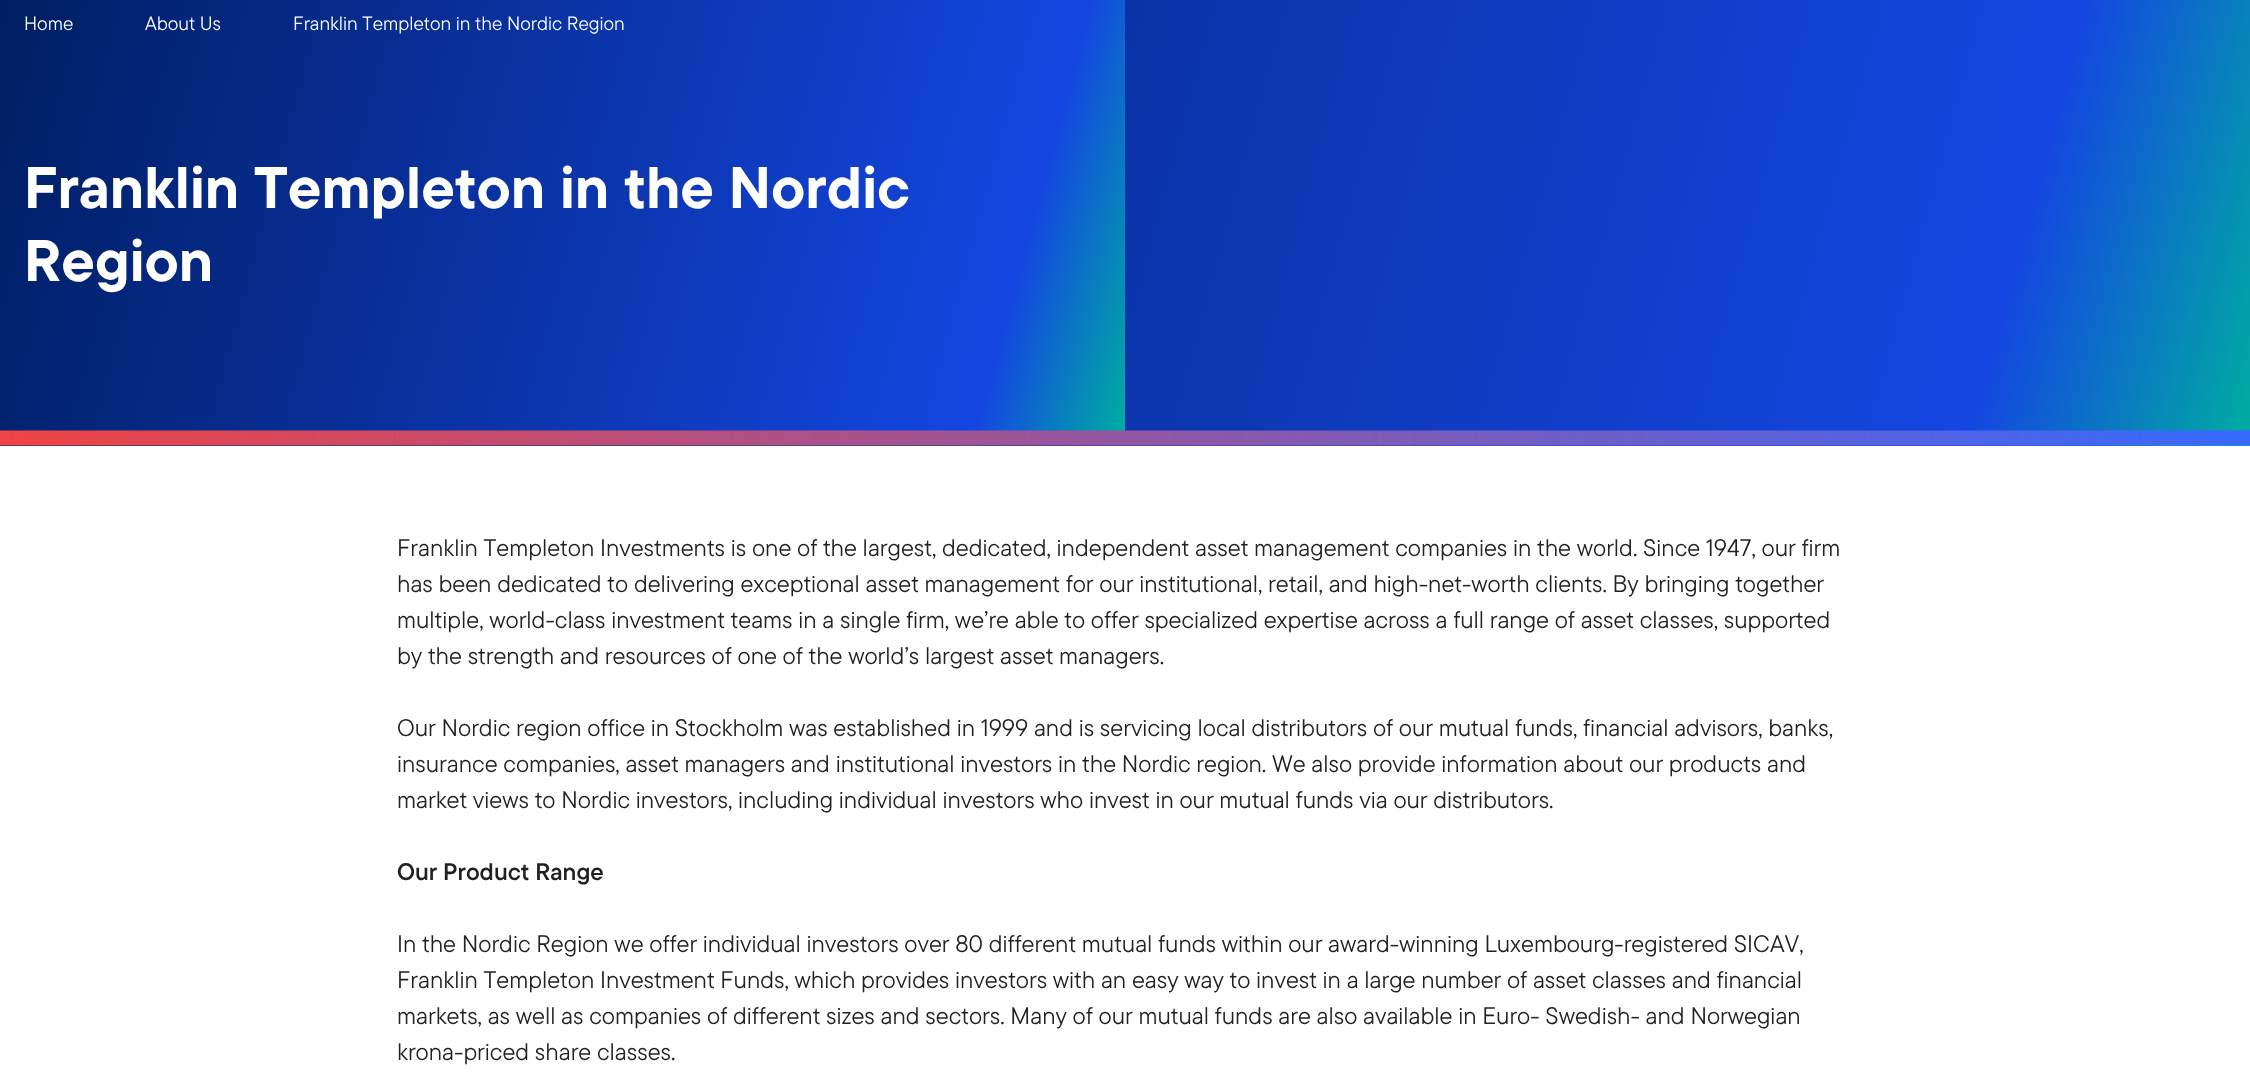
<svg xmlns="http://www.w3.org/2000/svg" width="2250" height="1086">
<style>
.a{font:19.25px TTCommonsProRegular;fill:#fff}
.b{font:bold 58.6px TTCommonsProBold;fill:#fff}
.c{font:24px TTCommonsProRegular;fill:#212121}
.d{font:600 24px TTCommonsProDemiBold;fill:#212121}
</style>
<defs>
<linearGradient id="g1" gradientUnits="userSpaceOnUse" x1="2232" y1="511" x2="18" y2="-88"><stop offset="0" stop-color="#00ada2"/><stop offset="0.12" stop-color="#1446e1"/><stop offset="1" stop-color="#001e62"/></linearGradient>
<linearGradient id="g2" gradientUnits="userSpaceOnUse" x1="1144" y1="361" x2="-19" y2="47"><stop offset="0" stop-color="#00ada2"/><stop offset="0.12" stop-color="#1446e1"/><stop offset="1" stop-color="#001e62"/></linearGradient>
</defs>
<rect width="100%" height="100%" fill="#fff"/>
<path fill="url(#g1)" d="M0 0h2250v446H0z"/>
<path fill="url(#g2)" d="M0 0h1125v431H0z"/>
<image href="1.png" x="0" y="430" width="2250" height="16"/>
<text class="a" x="24" y="30">Home</text>
<text class="a" x="145" y="30">About Us</text>
<text class="a" x="293" y="30">Franklin Templeton in the Nordic Region</text>
<text class="b" x="24" y="208">Franklin Templeton in the Nordic</text>
<text class="b" x="24" y="281">Region</text>
<text class="c" x="397" y="556">Franklin Templeton Investments is one of the largest, dedicated, independent asset management companies in the world. Since 1947, our firm</text>
<text class="c" x="397" y="592">has been dedicated to delivering exceptional asset management for our institutional, retail, and high-net-worth clients. By bringing together</text>
<text class="c" x="397" y="628">multiple, world-class investment teams in a single firm, we’re able to offer specialized expertise across a full range of asset classes, supported</text>
<text class="c" x="397" y="664">by the strength and resources of one of the world’s largest asset managers.</text>
<text class="c" x="397" y="736">Our Nordic region office in Stockholm was established in 1999 and is servicing local distributors of our mutual funds, financial advisors, banks,</text>
<text class="c" x="397" y="772">insurance companies, asset managers and institutional investors in the Nordic region. We also provide information about our products and</text>
<text class="c" x="397" y="808">market views to Nordic investors, including individual investors who invest in our mutual funds via our distributors.</text>
<text class="d" x="397" y="880">Our Product Range</text>
<text class="c" x="397" y="952">In the Nordic Region we offer individual investors over 80 different mutual funds within our award-winning Luxembourg-registered SICAV,</text>
<text class="c" x="397" y="988">Franklin Templeton Investment Funds, which provides investors with an easy way to invest in a large number of asset classes and financial</text>
<text class="c" x="397" y="1024">markets, as well as companies of different sizes and sectors. Many of our mutual funds are also available in Euro- Swedish- and Norwegian</text>
<text class="c" x="397" y="1060">krona-priced share classes.</text>
</svg>
